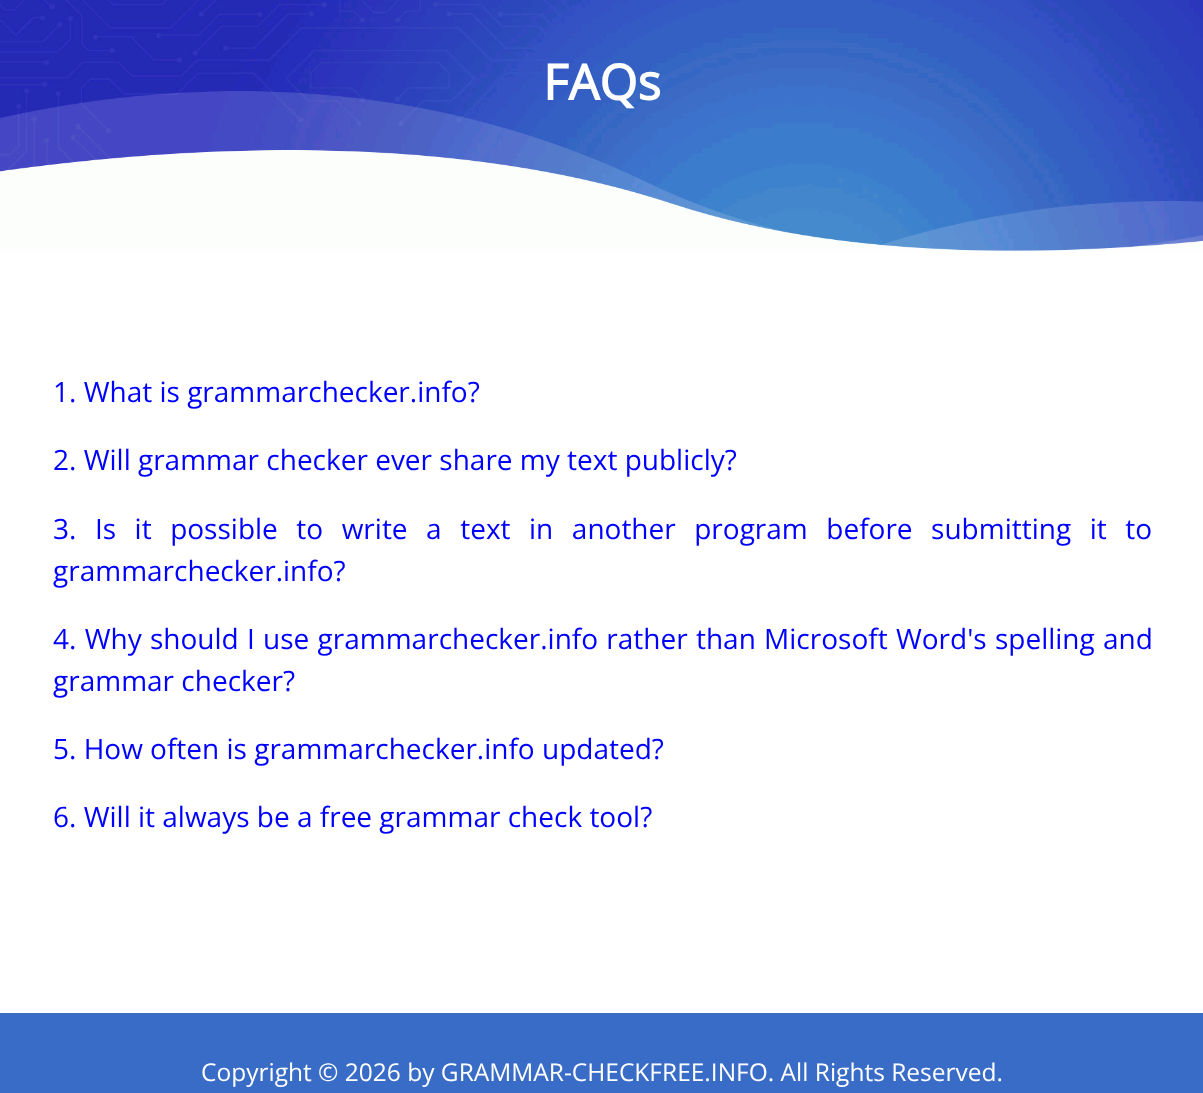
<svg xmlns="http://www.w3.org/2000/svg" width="1203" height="1093">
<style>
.a{font:bold 49px Open Sans;fill:#fff}
.b{font:28px Open Sans;fill:#00f}
.c{font:24.5px Open Sans;fill:#fff}
</style>
<rect width="100%" height="100%" fill="#fff"/>
<image href="1.png" x="0" y="0" width="1203" height="251"/>
<path fill="#396cc6" d="M0 1013h1203v80H0z"/>
<text class="a" x="543" y="100">FAQs</text>
<text class="b" x="53" y="402">1. What is grammarchecker.info?</text>
<text class="b" x="53" y="470">2. Will grammar checker ever share my text publicly?</text>
<text class="b" x="53" y="539" word-spacing="11.25">3. Is it possible to write a text in another program before submitting it to</text>
<text class="b" x="53" y="581">grammarchecker.info?</text>
<text class="b" x="53" y="649" word-spacing="1">4. Why should I use grammarchecker.info rather than Microsoft Word's spelling and</text>
<text class="b" x="53" y="691">grammar checker?</text>
<text class="b" x="53" y="759">5. How often is grammarchecker.info updated?</text>
<text class="b" x="53" y="827">6. Will it always be a free grammar check tool?</text>
<text class="c" x="201" y="1081">Copyright © 2026 by GRAMMAR-CHECKFREE.INFO. All Rights Reserved.</text>
</svg>
